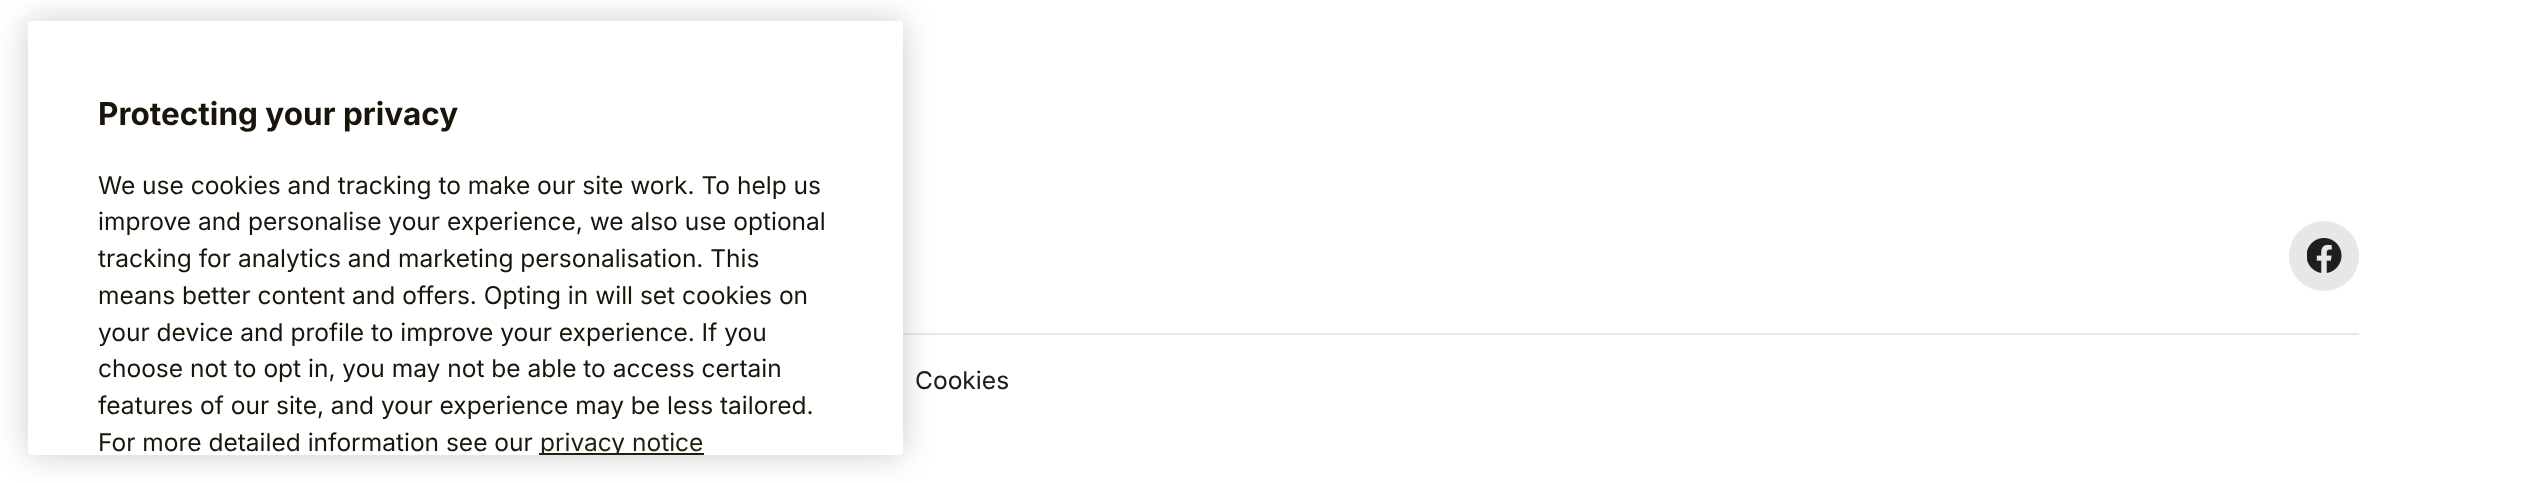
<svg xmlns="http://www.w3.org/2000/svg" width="2531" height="483">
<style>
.a{font:bold 31.5px Inter;fill:#1a150a}
.b{font:24.5px 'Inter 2';fill:#1a150a}
.c{font:24.5px 'Inter 2';fill:#241e0e}
.d{font:24.5px Inter;fill:#1e1e1e}
</style>
<defs>
<clipPath id="clip1"><rect x="28" y="21" width="875" height="434" rx="4"/></clipPath>
</defs>
<rect width="100%" height="100%" fill="#fff"/>
<path fill="#e7e7e7" d="M903 333h1456v2H903z"/>
<rect fill="#00000033" filter="blur(16px)" x="28" y="21" width="875" height="434" rx="4"/>
<rect fill="#fff" x="28" y="21" width="875" height="434" rx="4"/>
<path fill="#241e0e" d="M539 453h165v2H539z"/>
<circle fill="#e7e7e7" cx="2324" cy="256" r="35"/>
<image href="1.png" x="2307" y="238" width="35" height="35"/>
<text class="a" x="98" y="125">Protecting your privacy</text>
<text class="b" x="98" y="194">We use cookies and tracking to make our site work. To help us</text>
<text class="b" x="98" y="230">improve and personalise your experience, we also use optional</text>
<text class="b" x="98" y="267">tracking for analytics and marketing personalisation. This</text>
<text class="b" x="98" y="304">means better content and offers. Opting in will set cookies on</text>
<text class="b" x="98" y="341">your device and profile to improve your experience. If you</text>
<text class="b" x="98" y="377">choose not to opt in, you may not be able to access certain</text>
<text class="b" x="98" y="414">features of our site, and your experience may be less tailored.</text>
<text class="b" x="98" y="451">For more detailed information see our</text>
<g clip-path="url(#clip1)">
<text class="c" x="540" y="451">privacy notice</text>
</g>
<text class="d" x="915" y="389">Cookies</text>
</svg>
